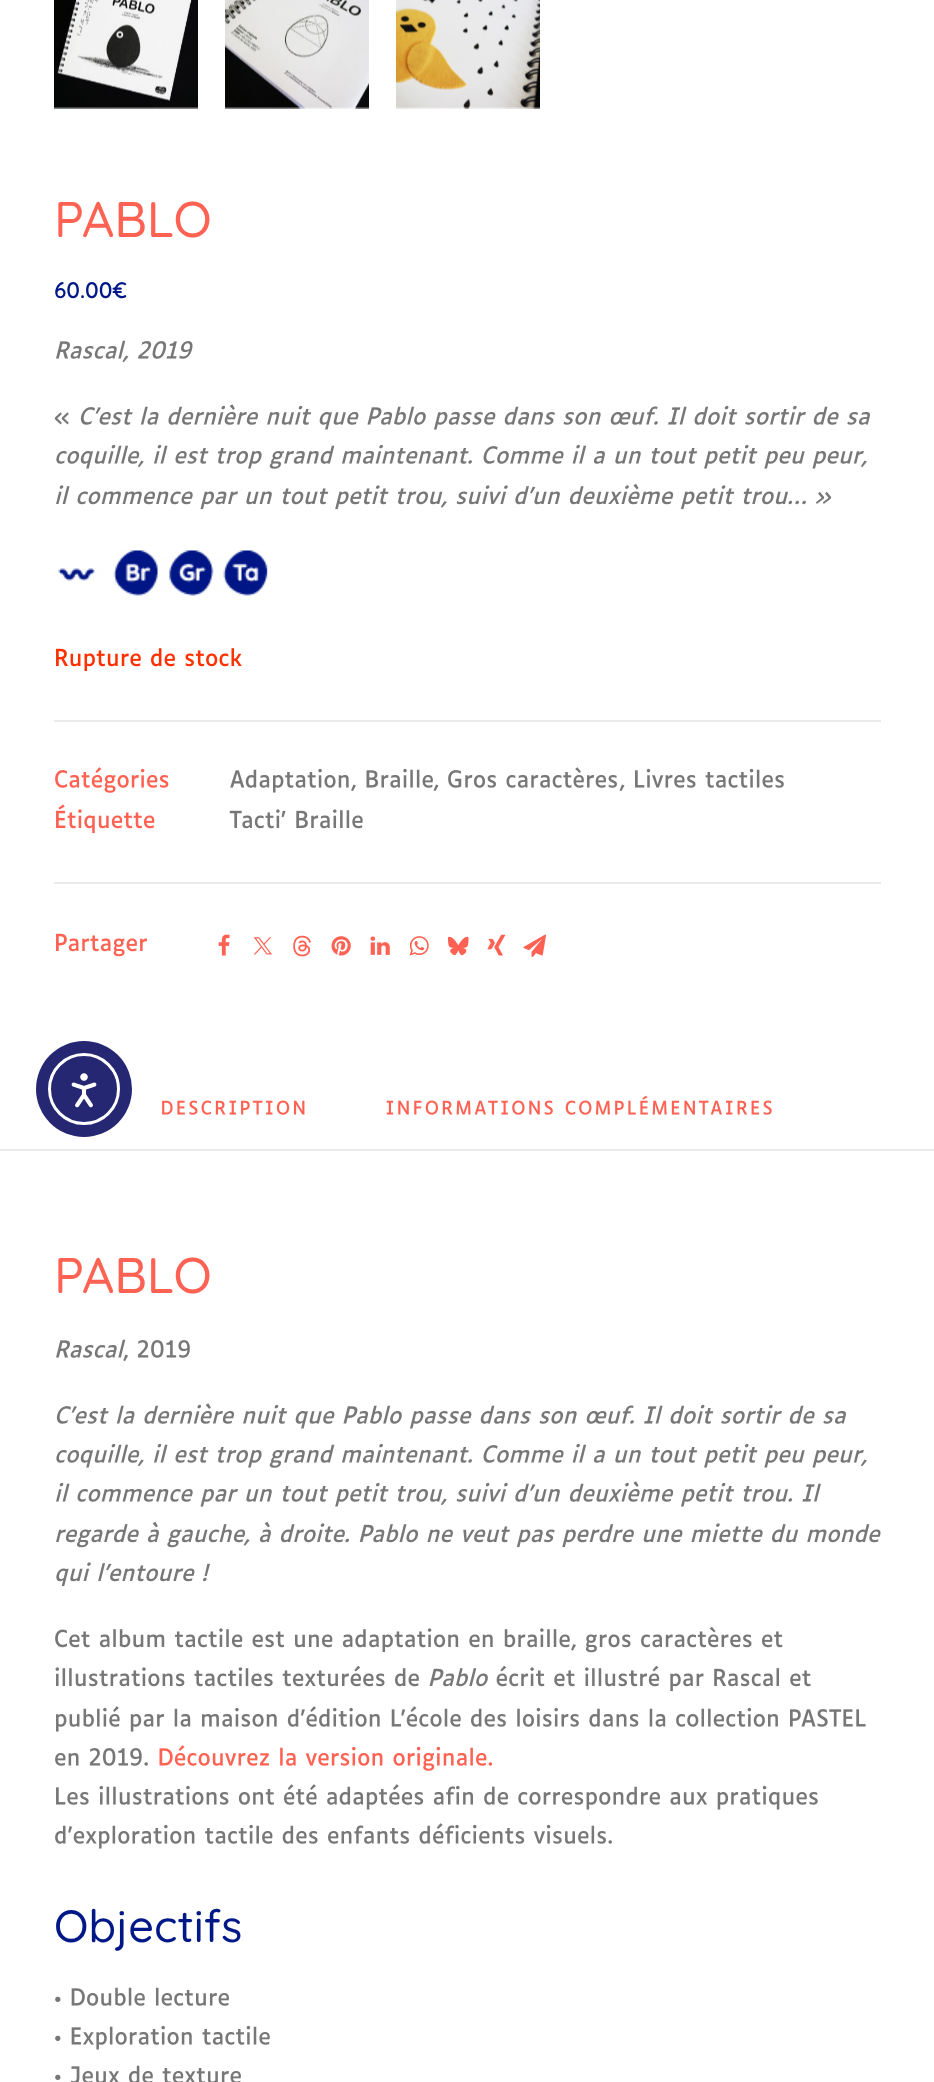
<svg xmlns="http://www.w3.org/2000/svg" width="934" height="2082">
<style>
.a{font:500 50px Quicksand;fill:#ff6152}
.b{font:600 22.5px Quicksand;fill:#001787}
.c{font:500 45px Quicksand;fill:#001787}
</style>
<rect width="100%" height="100%" fill="#fff"/>
<image href="1.png" x="54" y="0" width="144" height="109"/>
<image href="2.png" x="225" y="0" width="144" height="109"/>
<image href="3.png" x="396" y="0" width="144" height="109"/>
<image href="4.png" x="56" y="340" width="137" height="23"/>
<image href="5.png" x="54" y="412" width="15" height="13"/>
<image href="6.png" x="80" y="404" width="790" height="26"/>
<image href="7.png" x="56" y="444" width="811" height="25"/>
<image href="8.png" x="56" y="483" width="776" height="27"/>
<image href="9.png" x="58" y="550" width="210" height="46"/>
<image href="10.png" x="56" y="648" width="186" height="24"/>
<path fill="#eaeaea" d="M54 720h827v2H54z"/>
<image href="11.png" x="55" y="767" width="114" height="26"/>
<image href="12.png" x="230" y="768" width="119" height="25"/>
<path fill="#777" d="M356 785.5l-2.5-1l-2.5 6l2 .5z"/>
<image href="13.png" x="366" y="768" width="67" height="20"/>
<path fill="#777" d="M438.5 785.5l-2.5-1l-2.5 6l2 .5z"/>
<image href="14.png" x="448" y="767" width="169" height="21"/>
<path fill="#777" d="M624.5 785.5l-2.5-1l-2.5 6l2 .5z"/>
<image href="15.png" x="635" y="768" width="149" height="20"/>
<image href="16.png" x="56" y="804" width="99" height="30"/>
<image href="17.png" x="229" y="809" width="134" height="20"/>
<path fill="#eaeaea" d="M54 882h827v2H54z"/>
<image href="18.png" x="56" y="933" width="91" height="24"/>
<image href="19.png" x="218" y="934" width="12" height="22"/>
<image href="20.png" x="253" y="937" width="19" height="18"/>
<image href="21.png" x="293" y="935" width="18" height="22"/>
<image href="22.png" x="331" y="936" width="20" height="20"/>
<image href="23.png" x="370" y="936" width="20" height="19"/>
<image href="24.png" x="409" y="936" width="20" height="20"/>
<image href="25.png" x="447" y="936" width="22" height="20"/>
<image href="26.png" x="487" y="934" width="19" height="22"/>
<image href="27.png" x="523" y="934" width="23" height="24"/>
<image href="28.png" x="162" y="1100" width="143" height="15"/>
<image href="29.png" x="386" y="1095" width="386" height="20"/>
<path fill="#eaeaea" d="M0 1149h934v2H0z"/>
<image href="30.png" x="56" y="1339" width="70" height="19"/>
<image href="31.png" x="123" y="1340" width="67" height="22"/>
<image href="6.png" x="56" y="1403" width="790" height="26"/>
<image href="7.png" x="56" y="1443" width="811" height="25"/>
<image href="32.png" x="56" y="1481" width="765" height="26"/>
<image href="33.png" x="56" y="1521" width="825" height="27"/>
<image href="34.png" x="56" y="1562" width="154" height="25"/>
<image href="35.png" x="55" y="1626" width="728" height="27"/>
<image href="36.png" x="55" y="1665" width="364" height="22"/>
<image href="37.png" x="429" y="1668" width="59" height="19"/>
<image href="38.png" x="496" y="1665" width="315" height="27"/>
<image href="39.png" x="56" y="1706" width="810" height="26"/>
<image href="40.png" x="55" y="1748" width="93" height="18"/>
<image href="41.png" x="159" y="1745" width="334" height="26"/>
<image href="42.png" x="56" y="1784" width="762" height="26"/>
<image href="43.png" x="55" y="1823" width="557" height="26"/>
<image href="44.png" x="55" y="1987" width="174" height="19"/>
<image href="45.png" x="55" y="2025" width="215" height="25"/>
<image href="46.png" x="55" y="2065" width="186" height="17"/>
<circle fill="#252772" cx="84" cy="1089" r="48"/>
<circle fill="none" stroke="#fff" stroke-width="3" cx="84" cy="1089" r="34.5"/>
<image href="47.png" x="71" y="1073" width="26" height="35"/>
<text class="a" x="54" y="237">PABLO</text>
<text class="b" x="54" y="298">60.00€</text>
<text class="a" x="54" y="1293">PABLO</text>
<text class="c" x="54" y="1942">Objectifs</text>
</svg>
